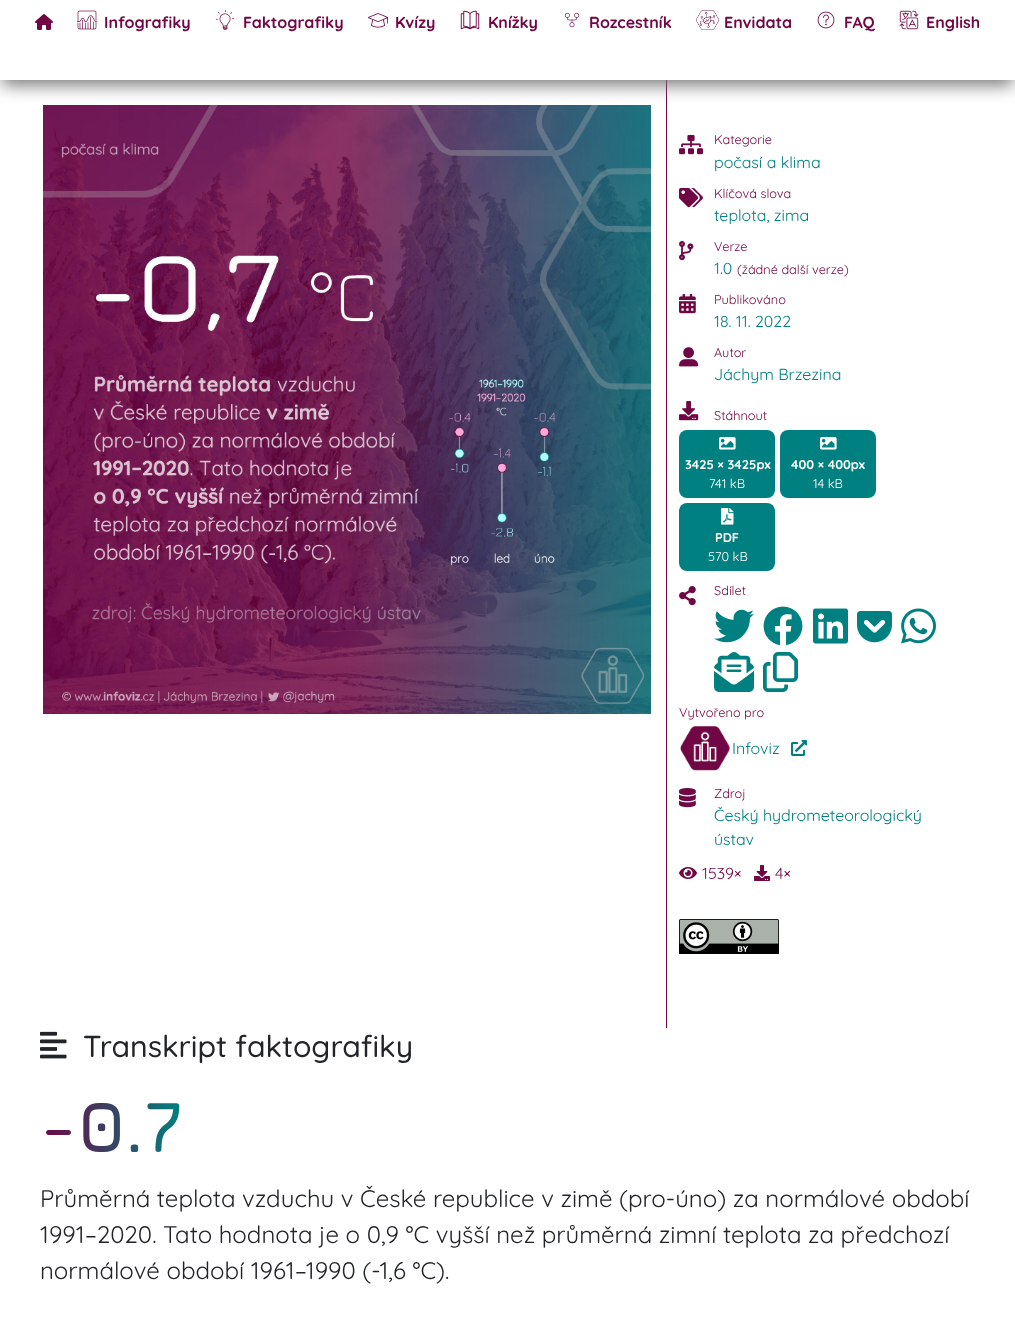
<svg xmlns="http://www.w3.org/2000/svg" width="1015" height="1324">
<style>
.a{font:bold 16px Quicksand;fill:#710644}
.b{font:12.75px Quicksand;fill:#710644}
.c{font:16px Quicksand;fill:#008080}
.d{font:bold 12.75px Quicksand;fill:#fff}
.e{font:12.75px Quicksand;fill:#fff}
.f{font:16px Quicksand;fill:#710644}
.g{font:500 30.25px Quicksand;fill:#212529}
.h{font:bold 72px Jura;fill:url(#g1)}
.i{font:24px Quicksand;fill:#212529}
</style>
<defs>
<linearGradient id="g1" gradientUnits="userSpaceOnUse" x1="40" y1="1126" x2="182" y2="1126"><stop offset="0" stop-color="#710644"/><stop offset="1" stop-color="#008080"/></linearGradient>
</defs>
<rect width="100%" height="100%" fill="#fff"/>
<path fill="#710644" d="M666 80h1v948H666z"/>
<image href="10.png" x="43" y="105" width="608" height="609"/>
<path fill="#757575" filter="blur(8.5px)" d="M2 9h1011v76H2z"/>
<path fill="#fff" d="M0 0h1015v80H0z"/>
<image href="1.png" x="35" y="14" width="18" height="16"/>
<image href="2.png" x="77" y="10" width="20" height="20"/>
<image href="3.png" x="215" y="10" width="20" height="20"/>
<image href="4.png" x="368" y="13" width="20" height="15"/>
<image href="5.png" x="460" y="10" width="20" height="20"/>
<image href="6.png" x="564" y="12" width="16" height="16"/>
<image href="7.png" x="696" y="10" width="23" height="20"/>
<image href="8.png" x="817" y="11" width="18" height="18"/>
<image href="9.png" x="899" y="10" width="20" height="20"/>
<image href="11.png" x="679" y="135" width="24" height="20"/>
<image href="12.png" x="679" y="188" width="24" height="20"/>
<image href="13.png" x="679" y="241" width="15" height="20"/>
<image href="14.png" x="679" y="294" width="17" height="20"/>
<image href="15.png" x="679" y="347" width="20" height="20"/>
<image href="16.png" x="679" y="401" width="20" height="20"/>
<rect fill="#008080" x="679" y="430" width="96" height="68" rx="8"/>
<image href="17.png" x="719" y="437" width="17" height="13"/>
<rect fill="#008080" x="780" y="430" width="96" height="68" rx="8"/>
<image href="17.png" x="820" y="437" width="17" height="13"/>
<rect fill="#008080" x="679" y="503" width="96" height="68" rx="8"/>
<image href="18.png" x="721" y="508" width="13" height="17"/>
<image href="19.png" x="679" y="586" width="17" height="20"/>
<image href="20.png" x="714" y="609" width="40" height="34"/>
<image href="21.png" x="763" y="606" width="40" height="40"/>
<image href="22.png" x="813" y="608" width="35" height="36"/>
<image href="23.png" x="857" y="611" width="35" height="32"/>
<image href="24.png" x="901" y="608" width="35" height="36"/>
<image href="25.png" x="714" y="652" width="40" height="40"/>
<image href="26.png" x="763" y="652" width="35" height="40"/>
<image href="27.png" x="680" y="726" width="50" height="45"/>
<image href="28.png" x="791" y="740" width="16" height="16"/>
<image href="29.png" x="679" y="788" width="17" height="20"/>
<image href="30.png" x="679" y="867" width="18" height="12"/>
<image href="31.png" x="754" y="865" width="16" height="16"/>
<image href="32.png" x="679" y="919" width="100" height="35"/>
<image href="33.png" x="40" y="1031" width="27" height="28"/>
<text class="a" x="104" y="28">Infografiky</text>
<text class="a" x="243" y="28">Faktografiky</text>
<text class="a" x="395" y="28">Kvízy</text>
<text class="a" x="488" y="28">Knížky</text>
<text class="a" x="589" y="28">Rozcestník</text>
<text class="a" x="724" y="28">Envidata</text>
<text class="a" x="844" y="28">FAQ</text>
<text class="a" x="926" y="28">English</text>
<text class="b" x="714" y="144">Kategorie</text>
<text class="c" x="714" y="168">počasí a klima</text>
<text class="b" x="714" y="198">Klíčová slova</text>
<text class="c" x="714" y="221">teplota, zima</text>
<text class="b" x="714" y="251">Verze</text>
<text class="c" x="714" y="274">1.0</text>
<text class="b" x="737" y="274">(žádné další verze)</text>
<text class="b" x="714" y="304">Publikováno</text>
<text class="c" x="714" y="327">18. 11. 2022</text>
<text class="b" x="714" y="357">Autor</text>
<text class="c" x="714" y="380">Jáchym Brzezina</text>
<text class="b" x="714" y="420">Stáhnout</text>
<text class="d" x="685" y="469">3425 × 3425px</text>
<text class="e" x="709" y="488">741 kB</text>
<text class="d" x="791" y="469">400 × 400px</text>
<text class="e" x="813" y="488">14 kB</text>
<text class="d" x="715" y="542">PDF</text>
<text class="e" x="708" y="561">570 kB</text>
<text class="b" x="714" y="595">Sdílet</text>
<text class="b" x="679" y="717">Vytvořeno pro</text>
<text class="c" x="732" y="754">Infoviz</text>
<text class="b" x="714" y="798">Zdroj</text>
<text class="c" x="714" y="821">Český hydrometeorologický</text>
<text class="c" x="714" y="845">ústav</text>
<text class="f" x="702" y="879">1539×</text>
<text class="f" x="775" y="879">4×</text>
<text class="g" x="83" y="1057">Transkript faktografiky</text>
<text class="h" x="40" y="1152">-0.7</text>
<text class="i" x="40" y="1207">Průměrná teplota vzduchu v České republice v zimě (pro-úno) za normálové období</text>
<text class="i" x="40" y="1243">1991–2020. Tato hodnota je o 0,9 °C vyšší než průměrná zimní teplota za předchozí</text>
<text class="i" x="40" y="1279">normálové období 1961–1990 (-1,6 °C).</text>
</svg>
